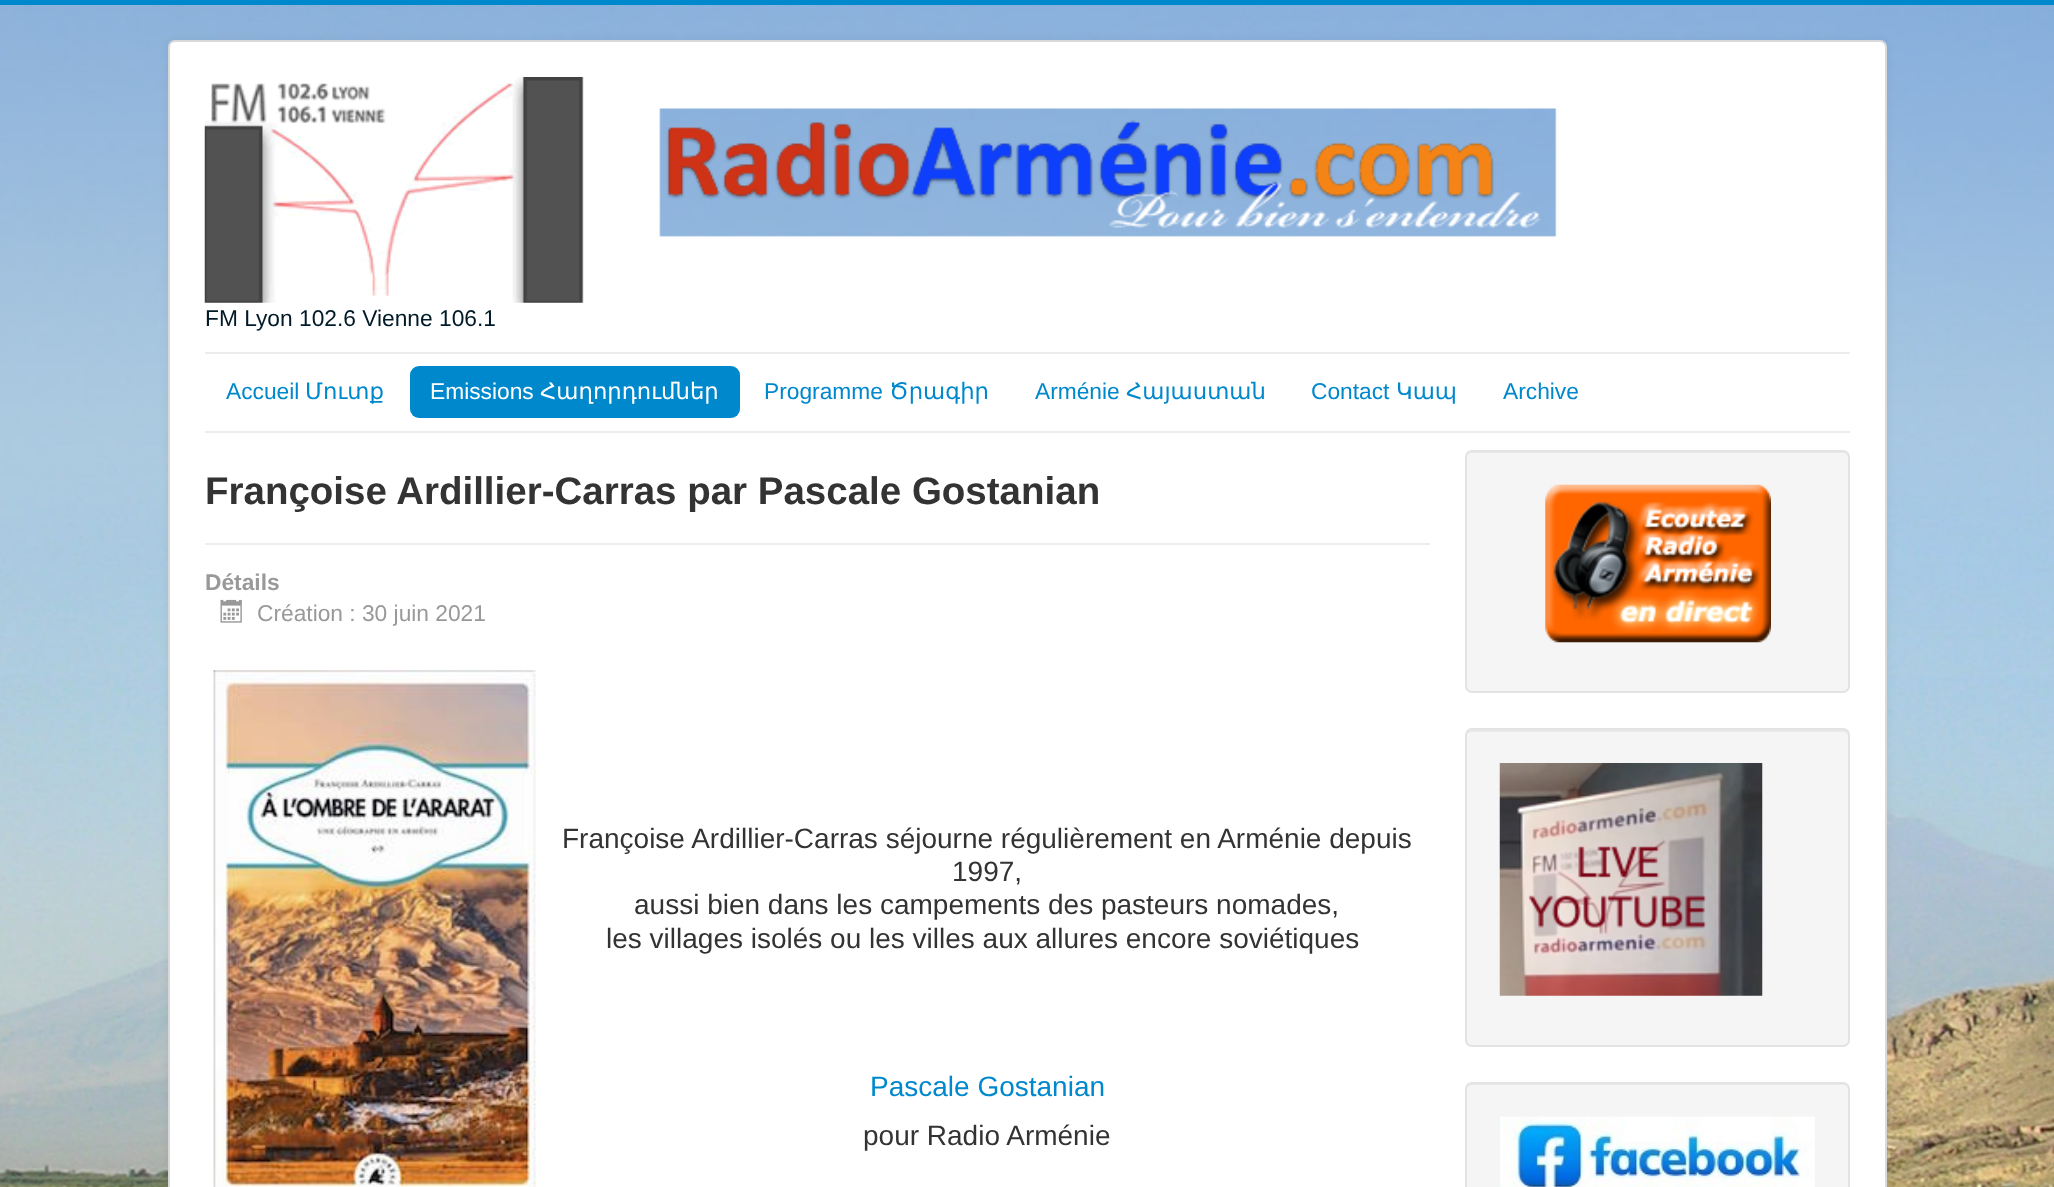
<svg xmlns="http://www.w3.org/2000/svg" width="2054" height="1187">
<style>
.a{font:22.75px Liberation Sans;fill:#001a27}
.b{font:22.75px Liberation Sans;fill:#08c}
.c{font:22.75px DejaVu Sans;fill:#08c}
.d{font:22.75px Liberation Sans;fill:#fff}
.e{font:22.75px DejaVu Sans;fill:#fff}
.f{font:bold 38.5px Liberation Sans;fill:#333}
.g{font:bold 22.75px Liberation Sans;fill:#999}
.h{font:22.75px Liberation Sans;fill:#999}
.i{font:28px Liberation Sans;fill:#333}
.j{font:28px Liberation Sans;fill:#08c}
</style>
<rect width="100%" height="100%" fill="#fff"/>
<image href="1.png" x="0" y="5" width="2054" height="1182"/>
<path fill="#08c" d="M0 0h2054v5H0z"/>
<rect fill="#0000000d" filter="blur(5px)" x="168" y="40" width="1719" height="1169" rx="7"/>
<rect fill="#fff" x="168" y="40" width="1719" height="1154" rx="7"/>
<rect fill="none" stroke="#00000026" stroke-width="2" x="169" y="41" width="1717" height="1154" rx="6"/>
<image href="2.png" x="204" y="77" width="1353" height="226"/>
<path fill="#ececec" d="M205 352h1645v2H205z"/>
<path fill="#ececec" d="M205 431h1645v2H205z"/>
<rect fill="#08c" x="410" y="366" width="330" height="52" rx="9"/>
<path fill="#eee" d="M205 543h1225v2H205z"/>
<image href="3.png" x="220" y="599" width="22" height="24"/>
<image href="4.png" x="213" y="670" width="323" height="517"/>
<rect fill="#f5f5f5" x="1465" y="450" width="385" height="243" rx="7"/>
<path fill="#e9e9e9" d="M1472 453h371c3 0 5 3 5 5v-1c0-3-2-5-5-5h-371c-2 0-4 1-5 3c1-1 3-2 5-2z"/>
<rect fill="none" stroke="#e3e3e3" stroke-width="2" x="1466" y="451" width="383" height="241" rx="6"/>
<image href="5.png" x="1545" y="484" width="226" height="159"/>
<rect fill="#f5f5f5" x="1465" y="728" width="385" height="319" rx="7"/>
<path fill="#e9e9e9" d="M1472 732h371c3 0 5 2 5 5v-2c0-3-2-5-5-5h-371c-2 0-5 2-5 4c1-1 3-2 5-2z"/>
<rect fill="none" stroke="#e3e3e3" stroke-width="2" x="1466" y="729" width="383" height="317" rx="6"/>
<image href="6.png" x="1499" y="763" width="264" height="233"/>
<rect fill="#f5f5f5" x="1465" y="1082" width="385" height="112" rx="7"/>
<path fill="#e9e9e9" d="M1472 1085h371c3 0 5 2 5 5v-2c0-3-2-5-5-5h-371c-2 0-5 2-5 4c1-1 3-2 5-2z"/>
<rect fill="none" stroke="#e3e3e3" stroke-width="2" x="1466" y="1083" width="383" height="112" rx="6"/>
<image href="7.png" x="1500" y="1116" width="315" height="71"/>
<text class="a" x="205" y="326">FM Lyon 102.6 Vienne 106.1</text>
<text class="b" x="226" y="399">Accueil</text>
<text class="c" x="305" y="399">Մուտք</text>
<text class="d" x="430" y="399">Emissions</text>
<text class="e" x="540" y="399">Հաղորդումներ</text>
<text class="b" x="764" y="399">Programme</text>
<text class="c" x="889" y="399">Ծրագիր</text>
<text class="b" x="1035" y="399">Arménie</text>
<text class="c" x="1126" y="399">Հայաստան</text>
<text class="b" x="1311" y="399">Contact</text>
<text class="c" x="1396" y="399">Կապ</text>
<text class="b" x="1503" y="399">Archive</text>
<text class="f" x="205" y="504">Françoise Ardillier-Carras par Pascale Gostanian</text>
<text class="g" x="205" y="590">Détails</text>
<text class="h" x="257" y="621">Création : 30 juin 2021</text>
<text class="i" x="562" y="848">Françoise Ardillier-Carras séjourne régulièrement en Arménie depuis</text>
<text class="i" x="952" y="881">1997,</text>
<text class="i" x="634" y="914">aussi bien dans les campements des pasteurs nomades,</text>
<text class="i" x="606" y="948">les villages isolés ou les villes aux allures encore soviétiques</text>
<text class="j" x="870" y="1096">Pascale Gostanian</text>
<text class="i" x="863" y="1145">pour Radio Arménie</text>
</svg>
